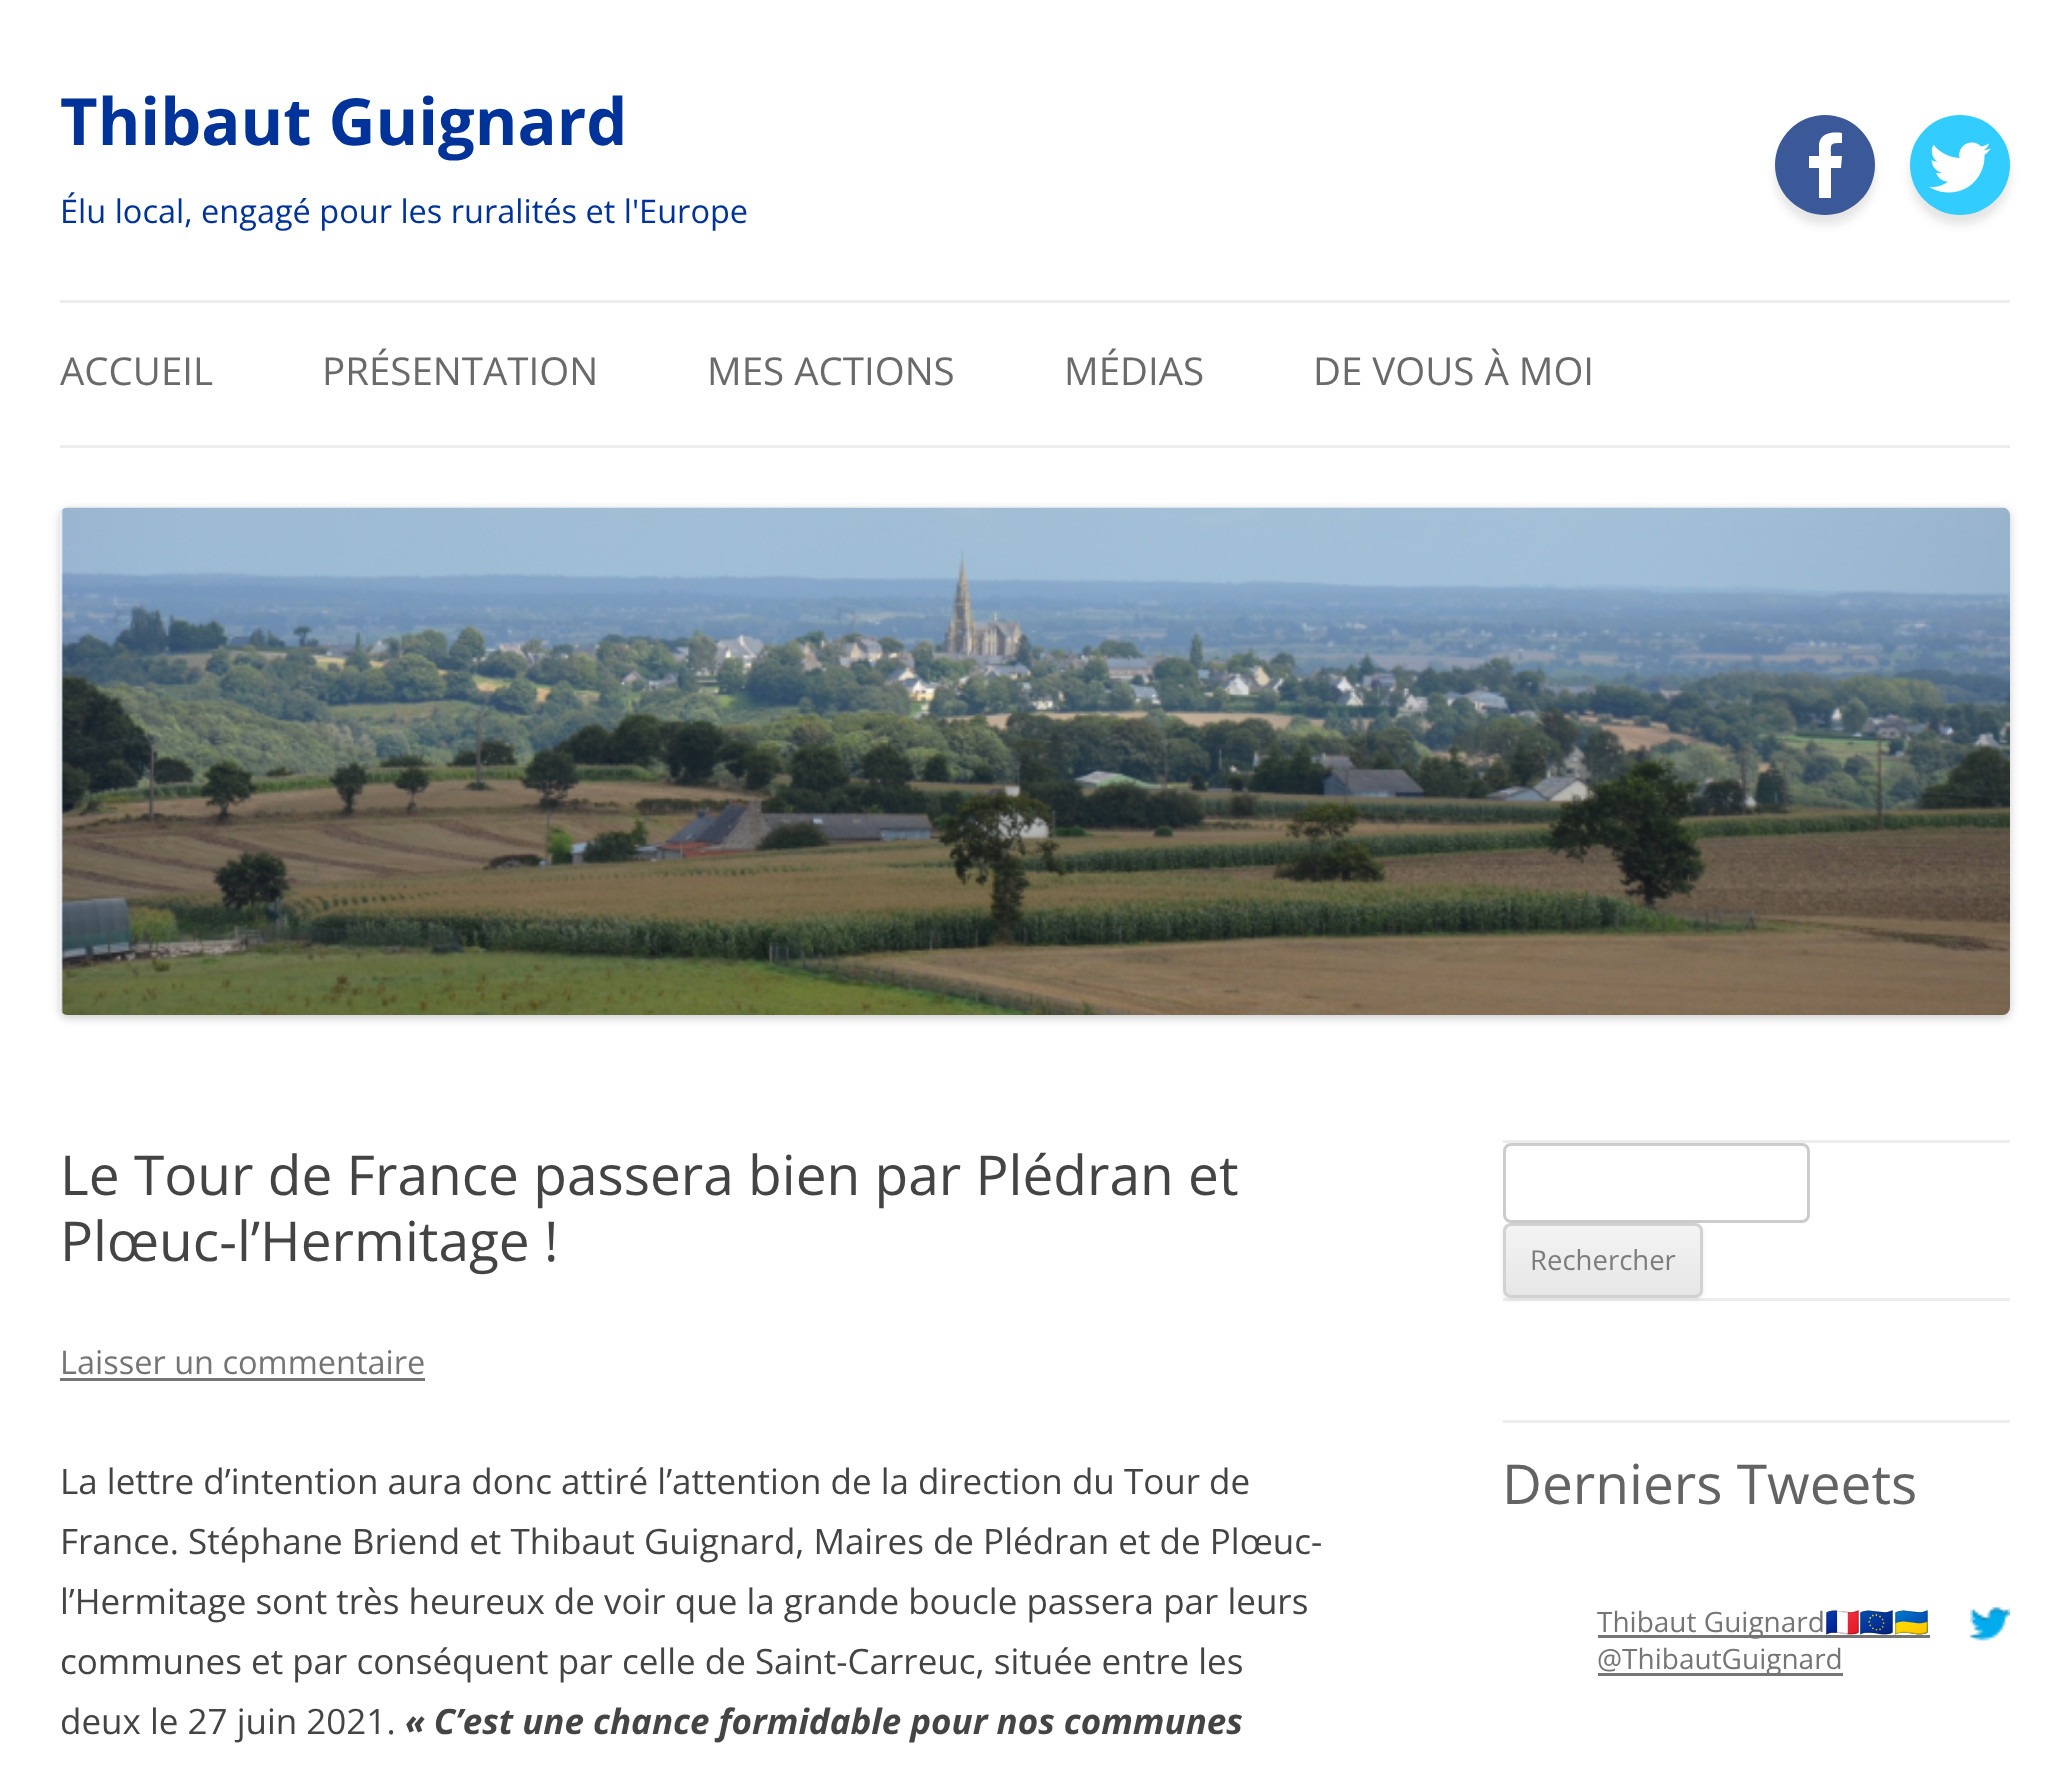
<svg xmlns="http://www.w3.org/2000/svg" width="2070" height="1773">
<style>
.a{font:bold 65px Open Sans;fill:#039}
.b{font:32.5px Open Sans;fill:#039}
.c{font:38.5px Open Sans;fill:#6a6a6a}
.d{font:55px Open Sans;fill:#444}
.e{font:32.5px Open Sans;fill:#757575}
.f{font:35px Open Sans;fill:#444}
.g{font:italic bold 35px Open Sans;fill:#444}
.h{font:27.5px Open Sans;fill:#7c7c7c}
.i{font:55px Open Sans;fill:#636363}
.j{font:28px Open Sans;fill:#757575}
.k{font:28px Noto Color Emoji;fill:#757575}
</style>
<defs>
<clipPath id="clip1"><rect x="1503" y="1223" width="200" height="75" rx="8"/></clipPath>
<linearGradient id="g1" gradientUnits="userSpaceOnUse" x1="1603" y1="1225" x2="1603" y2="1295"><stop offset="0" stop-color="#f4f4f4"/><stop offset="1" stop-color="#e6e6e6"/></linearGradient>
</defs>
<rect width="100%" height="100%" fill="#fff"/>
<rect fill="#0000001a" filter="blur(5px)" x="1775" y="125" width="100" height="100" rx="50"/>
<circle fill="#3b5998" cx="1825" cy="165" r="50"/>
<path fill="#fff" d="M1842 133v10c-13 0-11 1-11 13h11l-1 12h-10v30h-12v-30h-10v-12h10v-12c2-12 14-12 23-11z"/>
<rect fill="#0000001a" filter="blur(5px)" x="1910" y="125" width="100" height="100" rx="50"/>
<circle fill="#3cf" cx="1960" cy="165" r="50"/>
<image href="1.png" x="1929" y="142" width="62" height="51"/>
<path fill="#ededed" d="M60 300h1950v3H60z"/>
<path fill="#ededed" d="M60 445h1950v3H60z"/>
<rect fill="#00000033" filter="blur(5px)" x="60" y="510" width="1950" height="508" rx="8"/>
<image href="2.png" x="60" y="507" width="1950" height="508"/>
<path fill="#757575" d="M60 1378h365v3H60z"/>
<path fill="#ededed" d="M1503 1140h507v3H1503z"/>
<path fill="#ededed" d="M1503 1298h507v3H1503z"/>
<rect fill="none" stroke="#ccc" stroke-width="3" x="1504.5" y="1144.5" width="304" height="77" rx="6.5"/>
<rect fill="#4040401a" filter="blur(2.5px)" x="1503" y="1225" width="200" height="75" rx="8"/>
<g clip-path="url(#clip1)">
<path fill="url(#g1)" d="M1503 1225h200v70H1503z"/>
</g>
<rect fill="none" stroke="#d2d2d2" stroke-width="3" x="1504.5" y="1224.5" width="197" height="72" rx="6.5"/>
<path fill="#ededed" d="M1503 1420h507v3H1503z"/>
<path fill="#757575" d="M1598 1635h332v3H1598z"/>
<image href="3.png" x="1970" y="1606" width="40" height="35"/>
<path fill="#757575" d="M1598 1673h245v3H1598z"/>
<text class="a" x="60" y="145">Thibaut Guignard</text>
<text class="b" x="60" y="223">Élu local, engagé pour les ruralités et l'Europe</text>
<text class="c" x="60" y="385">ACCUEIL</text>
<text class="c" x="322" y="385">PRÉSENTATION</text>
<text class="c" x="707" y="385">MES ACTIONS</text>
<text class="c" x="1064" y="385">MÉDIAS</text>
<text class="c" x="1313" y="385">DE VOUS À MOI</text>
<text class="d" x="60" y="1195">Le Tour de France passera bien par Plédran et</text>
<text class="d" x="60" y="1261">Plœuc-l’Hermitage !</text>
<text class="e" x="60" y="1374">Laisser un commentaire</text>
<text class="f" x="60" y="1494">La lettre d’intention aura donc attiré l’attention de la direction du Tour de</text>
<text class="f" x="60" y="1554">France. Stéphane Briend et Thibaut Guignard, Maires de Plédran et de Plœuc-</text>
<text class="f" x="60" y="1614">l’Hermitage sont très heureux de voir que la grande boucle passera par leurs</text>
<text class="f" x="60" y="1674">communes et par conséquent par celle de Saint-Carreuc, située entre les</text>
<text class="f" x="60" y="1734">deux le 27 juin 2021.</text>
<text class="g" x="405" y="1734">« C’est une chance formidable pour nos communes</text>
<text class="h" x="1530" y="1270">Rechercher</text>
<text class="i" x="1502" y="1504">Derniers Tweets</text>
<text class="j" x="1597" y="1632">Thibaut Guignard</text>
<text class="k" x="1825" y="1632">🇫🇷🇪🇺🇺🇦</text>
<text class="j" x="1597" y="1669">@ThibautGuignard</text>
</svg>
